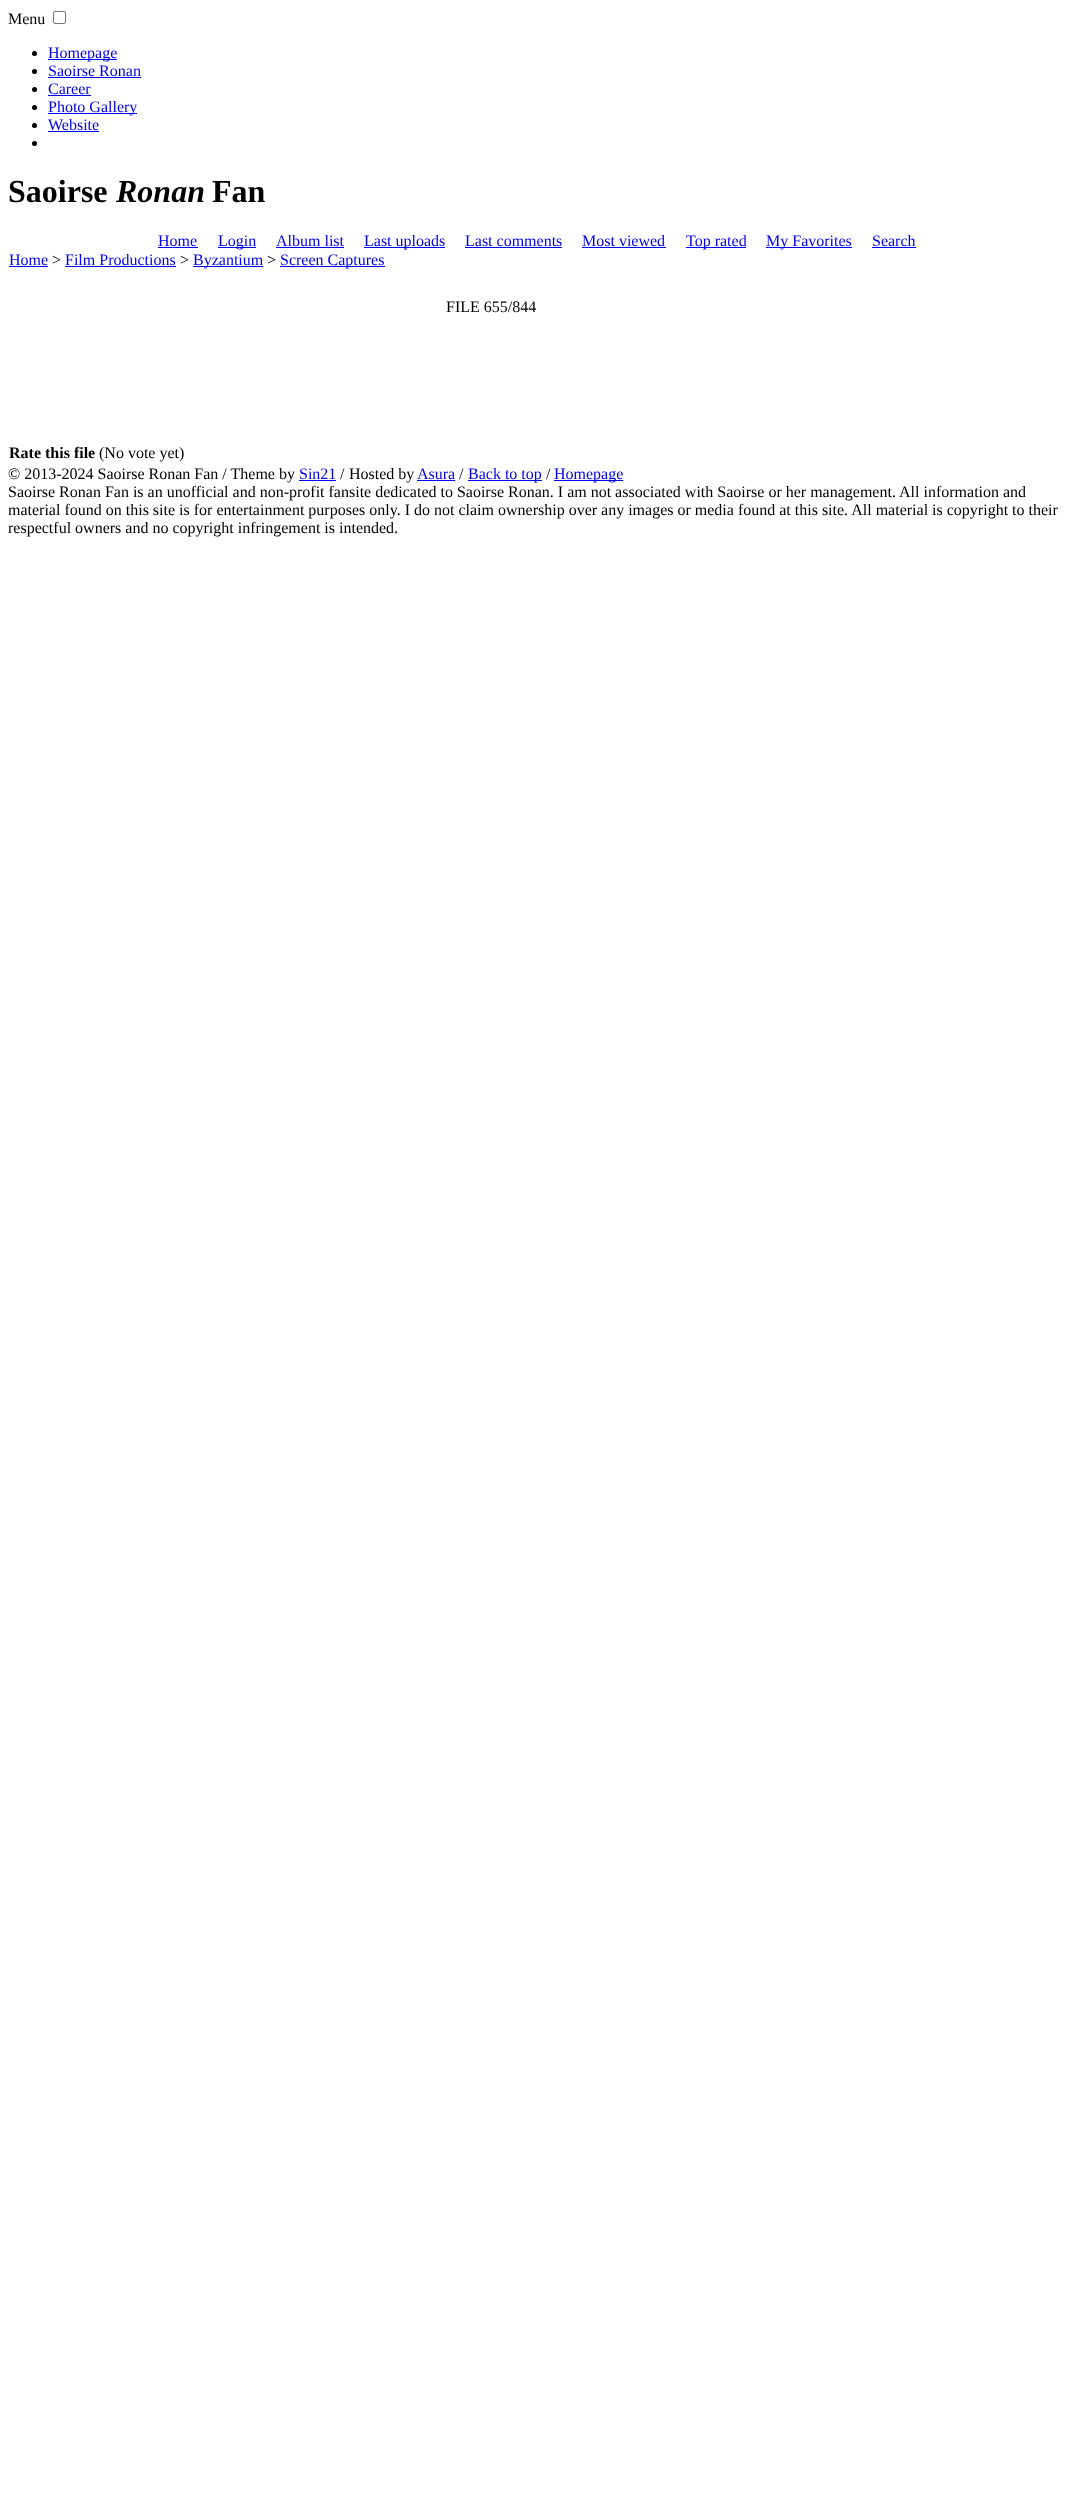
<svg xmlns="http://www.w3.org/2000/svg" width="1074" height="2498">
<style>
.a{font:16px Liberation Serif;fill:#000}
.b{font:16px Liberation Serif;fill:#00e}
.c{font:bold 32px Liberation Serif;fill:#000}
.d{font:italic bold 32px Liberation Serif;fill:#000}
.e{font:bold 16px Liberation Serif;fill:#000}
</style>
<rect width="100%" height="100%" fill="#fff"/>
<rect fill="none" stroke="#767676" x="53.5" y="11.5" width="12" height="12" rx="1.5"/>
<circle fill="#000" cx="34.5" cy="53.5" r="2.5"/>
<path fill="#00e" d="M48 59h69v1H48z"/>
<circle fill="#000" cx="34.5" cy="71.5" r="2.5"/>
<path fill="#00e" d="M48 77h93v1H48z"/>
<circle fill="#000" cx="34.5" cy="89.5" r="2.5"/>
<path fill="#00e" d="M48 95h43v1H48z"/>
<circle fill="#000" cx="34.5" cy="107.5" r="2.5"/>
<path fill="#00e" d="M48 113h89v1H48z"/>
<circle fill="#000" cx="34.5" cy="125.5" r="2.5"/>
<path fill="#00e" d="M48 131h51v1H48z"/>
<circle fill="#000" cx="34.5" cy="143.5" r="2.5"/>
<path fill="#00e" d="M158 247h40v1H158z"/>
<path fill="#00e" d="M218 247h38v1H218z"/>
<path fill="#00e" d="M276 247h68v1H276z"/>
<path fill="#00e" d="M364 247h81v1H364z"/>
<path fill="#00e" d="M465 247h97v1H465z"/>
<path fill="#00e" d="M582 247h84v1H582z"/>
<path fill="#00e" d="M686 247h60v1H686z"/>
<path fill="#00e" d="M766 247h86v1H766z"/>
<path fill="#00e" d="M872 247h44v1H872z"/>
<path fill="#00e" d="M9 266h39v1H9z"/>
<path fill="#00e" d="M65 266h111v1H65z"/>
<path fill="#00e" d="M193 266h70v1H193z"/>
<path fill="#00e" d="M280 266h105v1H280z"/>
<path fill="#00e" d="M299 480h37v1H299z"/>
<path fill="#00e" d="M417 480h38v1H417z"/>
<path fill="#00e" d="M468 480h74v1H468z"/>
<path fill="#00e" d="M554 480h69v1H554z"/>
<text class="a" x="8" y="24">Menu</text>
<text class="b" x="48" y="58">Homepage</text>
<text class="b" x="48" y="76">Saoirse Ronan</text>
<text class="b" x="48" y="94">Career</text>
<text class="b" x="48" y="112">Photo Gallery</text>
<text class="b" x="48" y="130">Website</text>
<text class="c" x="8" y="202">Saoirse</text>
<text class="d" x="116" y="202">Ronan</text>
<text class="c" x="212" y="202">Fan</text>
<text class="b" x="158" y="246">Home</text>
<text class="b" x="218" y="246">Login</text>
<text class="b" x="276" y="246">Album list</text>
<text class="b" x="364" y="246">Last uploads</text>
<text class="b" x="465" y="246">Last comments</text>
<text class="b" x="582" y="246">Most viewed</text>
<text class="b" x="686" y="246">Top rated</text>
<text class="b" x="766" y="246">My Favorites</text>
<text class="b" x="872" y="246">Search</text>
<text class="b" x="9" y="265">Home</text>
<text class="a" x="52" y="265">&gt;</text>
<text class="b" x="65" y="265">Film Productions</text>
<text class="a" x="180" y="265">&gt;</text>
<text class="b" x="193" y="265">Byzantium</text>
<text class="a" x="267" y="265">&gt;</text>
<text class="b" x="280" y="265">Screen Captures</text>
<text class="a" x="446" y="312">FILE 655/844</text>
<text class="e" x="9" y="458">Rate this file</text>
<text class="a" x="99" y="458">(No vote yet)</text>
<text class="a" x="8" y="479">© 2013-2024 Saoirse Ronan Fan / Theme by</text>
<text class="b" x="299" y="479">Sin21</text>
<text class="a" x="340" y="479">/</text>
<text class="a" x="349" y="479">Hosted by</text>
<text class="b" x="417" y="479">Asura</text>
<text class="a" x="459" y="479">/</text>
<text class="b" x="468" y="479">Back to top</text>
<text class="a" x="546" y="479">/</text>
<text class="b" x="554" y="479">Homepage</text>
<text class="a" x="8" y="497">Saoirse Ronan Fan is an unofficial and non-profit fansite dedicated to Saoirse Ronan. I am not associated with Saoirse or her management. All information and</text>
<text class="a" x="8" y="515">material found on this site is for entertainment purposes only. I do not claim ownership over any images or media found at this site. All material is copyright to their</text>
<text class="a" x="8" y="533">respectful owners and no copyright infringement is intended.</text>
</svg>
